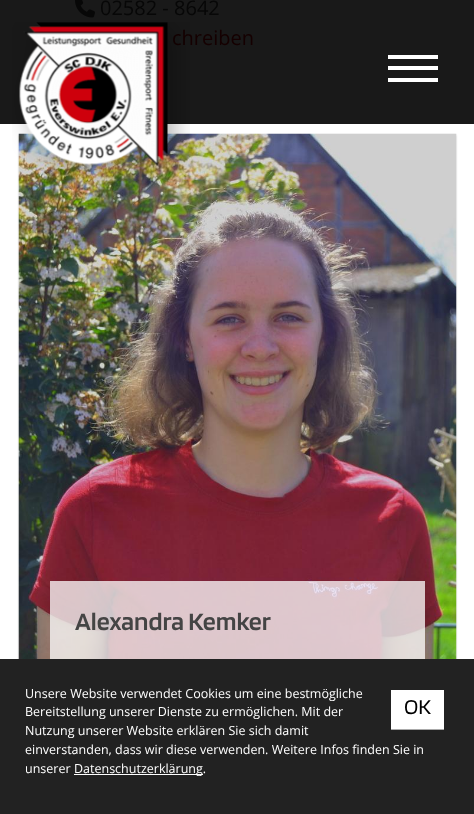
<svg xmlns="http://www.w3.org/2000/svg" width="474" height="814">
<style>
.a{font:20px Open Sans;fill:#070707}
.b{font:20px Open Sans;fill:#150001}
.c{font:600 26px Blinker;fill:#444}
.d{font:12.5px Open Sans;fill:#fff}
.e{font:22px Blinker;fill:#000}
</style>
<rect width="100%" height="100%" fill="#fff"/>
<path fill="#191919" d="M0 0h474v124H0z"/>
<image href="1.png" x="75" y="0" width="20" height="18"/>
<path fill="#00000033" filter="blur(1px)" d="M19 135h437v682H19z"/>
<image href="2.png" x="18" y="133" width="439" height="526"/>
<path fill="#ffffffbf" d="M50 581h375v78H50z"/>
<path fill="#fff" d="M388 55h50v4H388z"/>
<path fill="#fff" d="M388 66h50v4H388z"/>
<path fill="#fff" d="M388 78h50v4H388z"/>
<path fill="#222" d="M0 659h474v155H0z"/>
<path fill="#fff" d="M74 774h129v1H74z"/>
<path fill="#fff" d="M391 690h53v39H391z"/>
<path fill="#aaa" d="M391 729h53v1H391z"/>
<text class="a" x="100" y="15">02582 - 8642</text>
<text class="b" x="172" y="45">chreiben</text>
<text class="c" x="75" y="630">Alexandra Kemker</text>
<image href="3.png" x="12" y="22" width="178" height="164"/>
<text class="d" x="25" y="698">Unsere Website verwendet Cookies um eine bestmögliche</text>
<text class="d" x="25" y="716">Bereitstellung unserer Dienste zu ermöglichen. Mit der</text>
<text class="d" x="25" y="735">Nutzung unserer Website erklären Sie sich damit</text>
<text class="d" x="25" y="754">einverstanden, dass wir diese verwenden. Weitere Infos finden Sie in</text>
<text class="d" x="25" y="773">unserer</text>
<text class="d" x="74" y="773">Datenschutzerklärung.</text>
<text class="e" x="404" y="714">OK</text>
</svg>
